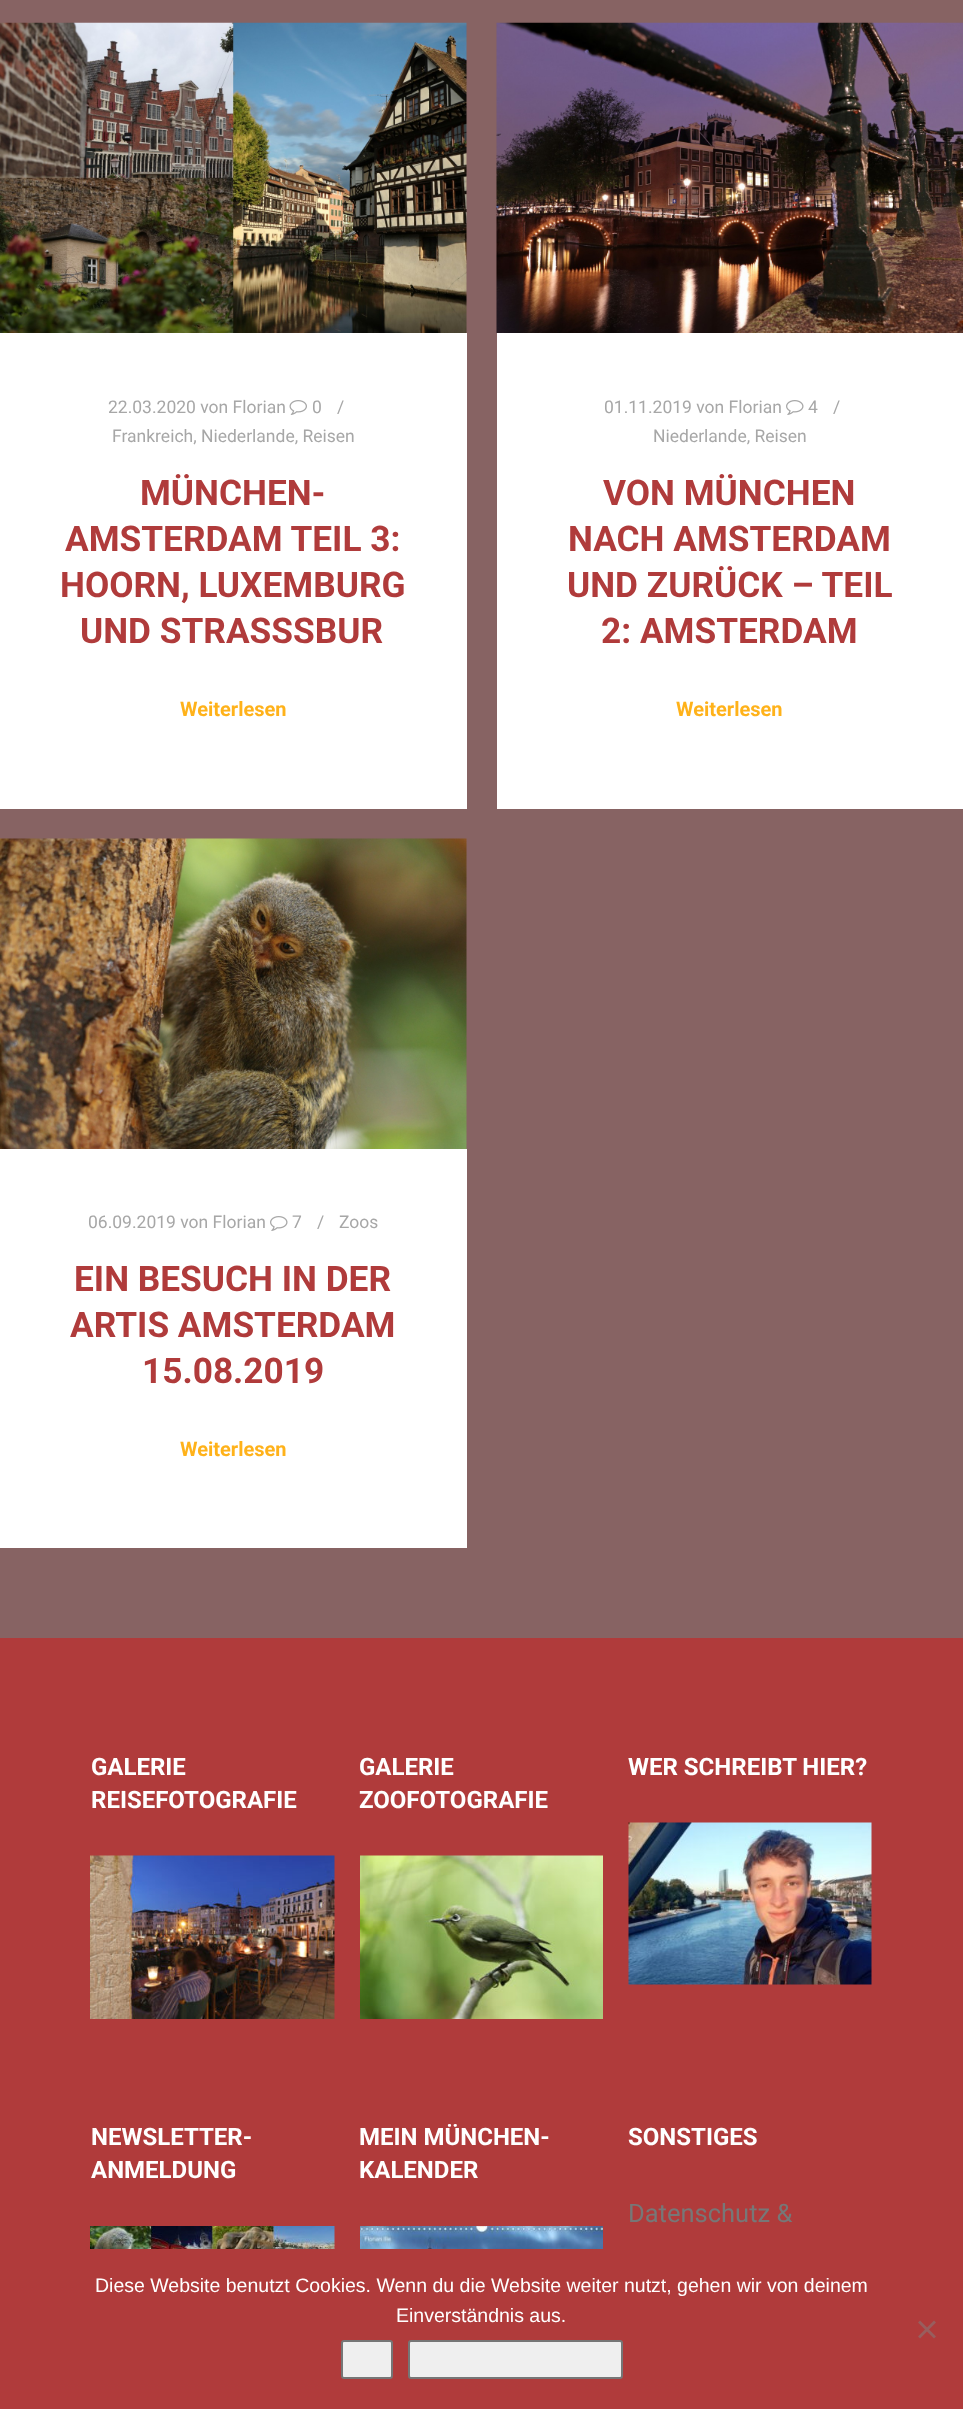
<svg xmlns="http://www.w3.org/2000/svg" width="963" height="2409">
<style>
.a{font:17.5px Roboto;fill:#a7a7a7}
.b{font:bold 35.25px Roboto;fill:#b03b3b}
.c{font:bold 20px Roboto;fill:#ffb21a}
.d{font:bold 24px Roboto;fill:#fff}
.e{font:25.5px Roboto;fill:#777}
.f{font:19.5px Liberation Sans;fill:#fff}
</style>
<rect width="100%" height="100%" fill="#876363"/>
<image href="1.png" x="0" y="22" width="467" height="311"/>
<path fill="#fff" d="M0 333h467v476H0z"/>
<image href="2.png" x="289" y="400" width="18" height="15"/>
<image href="3.png" x="496" y="22" width="467" height="311"/>
<path fill="#fff" d="M497 333h466v476H497z"/>
<image href="4.png" x="786" y="400" width="18" height="15"/>
<image href="5.png" x="0" y="838" width="467" height="311"/>
<path fill="#fff" d="M0 1149h467v399H0z"/>
<image href="4.png" x="270" y="1216" width="18" height="15"/>
<path fill="#b03b3b" d="M0 1638h963v771H0z"/>
<image href="6.png" x="90" y="1855" width="245" height="164"/>
<image href="7.png" x="360" y="1855" width="243" height="164"/>
<image href="8.png" x="628" y="1822" width="244" height="163"/>
<image href="9.png" x="90" y="2226" width="245" height="23"/>
<image href="10.png" x="360" y="2226" width="243" height="23"/>
<path fill="#985e5e" d="M934 2320.5l2 2l-16 16l-2-2z"/>
<path fill="#985e5e" d="M918 2322.5l2-2l16 16l-2 2z"/>
<rect fill="#efefef" stroke="#767676" stroke-width="2" x="342" y="2341" width="50" height="37" rx="2"/>
<rect fill="#efefef" stroke="#767676" stroke-width="2" x="409" y="2341" width="213" height="37" rx="2"/>
<text class="a" x="108" y="413">22.03.2020 von Florian</text>
<text class="a" x="312" y="413">0</text>
<text class="a" x="337" y="413">/</text>
<text class="a" x="112" y="442">Frankreich, Niederlande, Reisen</text>
<text class="b" x="140" y="505">MÜNCHEN-</text>
<text class="b" x="65" y="551">AMSTERDAM TEIL 3:</text>
<text class="b" x="60" y="597">HOORN, LUXEMBURG</text>
<text class="b" x="80" y="643">UND STRASSSBUR</text>
<text class="c" x="180" y="716">Weiterlesen</text>
<text class="a" x="604" y="413">01.11.2019 von Florian</text>
<text class="a" x="808" y="413">4</text>
<text class="a" x="833" y="413">/</text>
<text class="a" x="653" y="442">Niederlande, Reisen</text>
<text class="b" x="603" y="505">VON MÜNCHEN</text>
<text class="b" x="568" y="551">NACH AMSTERDAM</text>
<text class="b" x="567" y="597">UND ZURÜCK – TEIL</text>
<text class="b" x="601" y="643">2: AMSTERDAM</text>
<text class="c" x="676" y="716">Weiterlesen</text>
<text class="a" x="88" y="1228">06.09.2019 von Florian</text>
<text class="a" x="292" y="1228">7</text>
<text class="a" x="317" y="1228">/</text>
<text class="a" x="339" y="1228">Zoos</text>
<text class="b" x="74" y="1291">EIN BESUCH IN DER</text>
<text class="b" x="70" y="1337">ARTIS AMSTERDAM</text>
<text class="b" x="142" y="1383">15.08.2019</text>
<text class="c" x="180" y="1456">Weiterlesen</text>
<text class="d" x="91" y="1775">GALERIE</text>
<text class="d" x="91" y="1808">REISEFOTOGRAFIE</text>
<text class="d" x="359" y="1775">GALERIE</text>
<text class="d" x="359" y="1808">ZOOFOTOGRAFIE</text>
<text class="d" x="628" y="1775">WER SCHREIBT HIER?</text>
<text class="d" x="91" y="2145">NEWSLETTER-</text>
<text class="d" x="91" y="2178">ANMELDUNG</text>
<text class="d" x="359" y="2145">MEIN MÜNCHEN-</text>
<text class="d" x="359" y="2178">KALENDER</text>
<text class="d" x="628" y="2145">SONSTIGES</text>
<text class="e" x="628" y="2222">Datenschutz &amp;</text>
<text class="f" x="95" y="2292">Diese Website benutzt Cookies. Wenn du die Website weiter nutzt, gehen wir von deinem</text>
<text class="f" x="396" y="2322">Einverständnis aus.</text>
</svg>
